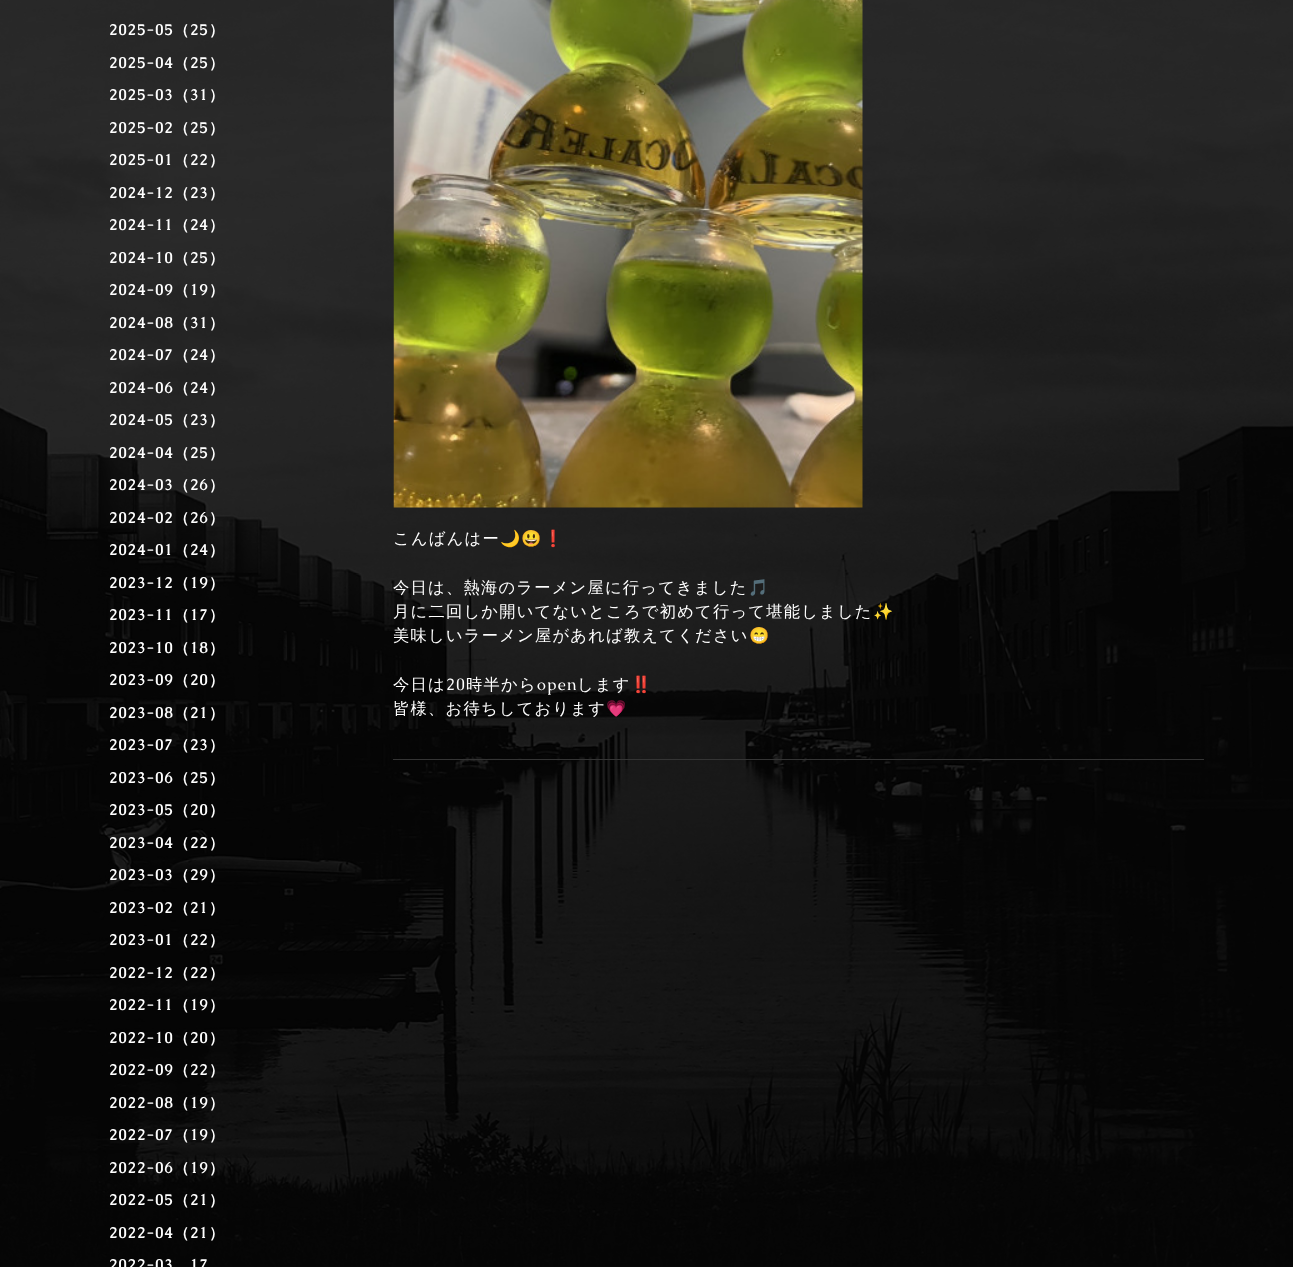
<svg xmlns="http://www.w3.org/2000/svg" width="1293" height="1267">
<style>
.a{font:bold 15px Caudex;letter-spacing:1.25px;fill:#fff}
.b{font:bold 15px WenQuanYi Zen Hei;letter-spacing:1.25px;fill:#fff}
.c{font:500 16.25px WenQuanYi Zen Hei;letter-spacing:1.25px;fill:#fff}
.d{font:16.25px Noto Color Emoji;letter-spacing:1.25px;fill:#fff}
.e{font:16.25px Caudex;letter-spacing:1.25px;fill:#fff}
</style>
<rect width="100%" height="100%" fill="#fff"/>
<image href="1.png" x="0" y="0" width="1293" height="1267"/>
<image href="2.png" x="393" y="0" width="470" height="508"/>
<path fill="#343434" d="M393 759h811v1H393z"/>
<text class="a" x="109" y="35">2025-05</text>
<text class="b" x="174" y="35">（</text>
<text class="a" x="190" y="35">25</text>
<text class="b" x="209" y="35">）</text>
<text class="a" x="109" y="68">2025-04</text>
<text class="b" x="174" y="68">（</text>
<text class="a" x="190" y="68">25</text>
<text class="b" x="209" y="68">）</text>
<text class="a" x="109" y="100">2025-03</text>
<text class="b" x="174" y="100">（</text>
<text class="a" x="190" y="100">31</text>
<text class="b" x="209" y="100">）</text>
<text class="a" x="109" y="133">2025-02</text>
<text class="b" x="174" y="133">（</text>
<text class="a" x="190" y="133">25</text>
<text class="b" x="209" y="133">）</text>
<text class="a" x="109" y="165">2025-01</text>
<text class="b" x="174" y="165">（</text>
<text class="a" x="190" y="165">22</text>
<text class="b" x="209" y="165">）</text>
<text class="a" x="109" y="198">2024-12</text>
<text class="b" x="174" y="198">（</text>
<text class="a" x="190" y="198">23</text>
<text class="b" x="209" y="198">）</text>
<text class="a" x="109" y="230">2024-11</text>
<text class="b" x="174" y="230">（</text>
<text class="a" x="190" y="230">24</text>
<text class="b" x="209" y="230">）</text>
<text class="a" x="109" y="263">2024-10</text>
<text class="b" x="174" y="263">（</text>
<text class="a" x="190" y="263">25</text>
<text class="b" x="209" y="263">）</text>
<text class="a" x="109" y="295">2024-09</text>
<text class="b" x="174" y="295">（</text>
<text class="a" x="190" y="295">19</text>
<text class="b" x="209" y="295">）</text>
<text class="a" x="109" y="328">2024-08</text>
<text class="b" x="174" y="328">（</text>
<text class="a" x="190" y="328">31</text>
<text class="b" x="209" y="328">）</text>
<text class="a" x="109" y="360">2024-07</text>
<text class="b" x="174" y="360">（</text>
<text class="a" x="190" y="360">24</text>
<text class="b" x="209" y="360">）</text>
<text class="a" x="109" y="393">2024-06</text>
<text class="b" x="174" y="393">（</text>
<text class="a" x="190" y="393">24</text>
<text class="b" x="209" y="393">）</text>
<text class="a" x="109" y="425">2024-05</text>
<text class="b" x="174" y="425">（</text>
<text class="a" x="190" y="425">23</text>
<text class="b" x="209" y="425">）</text>
<text class="a" x="109" y="458">2024-04</text>
<text class="b" x="174" y="458">（</text>
<text class="a" x="190" y="458">25</text>
<text class="b" x="209" y="458">）</text>
<text class="a" x="109" y="490">2024-03</text>
<text class="b" x="174" y="490">（</text>
<text class="a" x="190" y="490">26</text>
<text class="b" x="209" y="490">）</text>
<text class="a" x="109" y="523">2024-02</text>
<text class="b" x="174" y="523">（</text>
<text class="a" x="190" y="523">26</text>
<text class="b" x="209" y="523">）</text>
<text class="a" x="109" y="555">2024-01</text>
<text class="b" x="174" y="555">（</text>
<text class="a" x="190" y="555">24</text>
<text class="b" x="209" y="555">）</text>
<text class="a" x="109" y="588">2023-12</text>
<text class="b" x="174" y="588">（</text>
<text class="a" x="190" y="588">19</text>
<text class="b" x="209" y="588">）</text>
<text class="a" x="109" y="620">2023-11</text>
<text class="b" x="174" y="620">（</text>
<text class="a" x="190" y="620">17</text>
<text class="b" x="209" y="620">）</text>
<text class="a" x="109" y="653">2023-10</text>
<text class="b" x="174" y="653">（</text>
<text class="a" x="190" y="653">18</text>
<text class="b" x="209" y="653">）</text>
<text class="a" x="109" y="685">2023-09</text>
<text class="b" x="174" y="685">（</text>
<text class="a" x="190" y="685">20</text>
<text class="b" x="209" y="685">）</text>
<text class="a" x="109" y="718">2023-08</text>
<text class="b" x="174" y="718">（</text>
<text class="a" x="190" y="718">21</text>
<text class="b" x="209" y="718">）</text>
<text class="a" x="109" y="750">2023-07</text>
<text class="b" x="174" y="750">（</text>
<text class="a" x="190" y="750">23</text>
<text class="b" x="209" y="750">）</text>
<text class="a" x="109" y="783">2023-06</text>
<text class="b" x="174" y="783">（</text>
<text class="a" x="190" y="783">25</text>
<text class="b" x="209" y="783">）</text>
<text class="a" x="109" y="815">2023-05</text>
<text class="b" x="174" y="815">（</text>
<text class="a" x="190" y="815">20</text>
<text class="b" x="209" y="815">）</text>
<text class="a" x="109" y="848">2023-04</text>
<text class="b" x="174" y="848">（</text>
<text class="a" x="190" y="848">22</text>
<text class="b" x="209" y="848">）</text>
<text class="a" x="109" y="880">2023-03</text>
<text class="b" x="174" y="880">（</text>
<text class="a" x="190" y="880">29</text>
<text class="b" x="209" y="880">）</text>
<text class="a" x="109" y="913">2023-02</text>
<text class="b" x="174" y="913">（</text>
<text class="a" x="190" y="913">21</text>
<text class="b" x="209" y="913">）</text>
<text class="a" x="109" y="945">2023-01</text>
<text class="b" x="174" y="945">（</text>
<text class="a" x="190" y="945">22</text>
<text class="b" x="209" y="945">）</text>
<text class="a" x="109" y="978">2022-12</text>
<text class="b" x="174" y="978">（</text>
<text class="a" x="190" y="978">22</text>
<text class="b" x="209" y="978">）</text>
<text class="a" x="109" y="1010">2022-11</text>
<text class="b" x="174" y="1010">（</text>
<text class="a" x="190" y="1010">19</text>
<text class="b" x="209" y="1010">）</text>
<text class="a" x="109" y="1043">2022-10</text>
<text class="b" x="174" y="1043">（</text>
<text class="a" x="190" y="1043">20</text>
<text class="b" x="209" y="1043">）</text>
<text class="a" x="109" y="1075">2022-09</text>
<text class="b" x="174" y="1075">（</text>
<text class="a" x="190" y="1075">22</text>
<text class="b" x="209" y="1075">）</text>
<text class="a" x="109" y="1108">2022-08</text>
<text class="b" x="174" y="1108">（</text>
<text class="a" x="190" y="1108">19</text>
<text class="b" x="209" y="1108">）</text>
<text class="a" x="109" y="1140">2022-07</text>
<text class="b" x="174" y="1140">（</text>
<text class="a" x="190" y="1140">19</text>
<text class="b" x="209" y="1140">）</text>
<text class="a" x="109" y="1173">2022-06</text>
<text class="b" x="174" y="1173">（</text>
<text class="a" x="190" y="1173">19</text>
<text class="b" x="209" y="1173">）</text>
<text class="a" x="109" y="1205">2022-05</text>
<text class="b" x="174" y="1205">（</text>
<text class="a" x="190" y="1205">21</text>
<text class="b" x="209" y="1205">）</text>
<text class="a" x="109" y="1238">2022-04</text>
<text class="b" x="174" y="1238">（</text>
<text class="a" x="190" y="1238">21</text>
<text class="b" x="209" y="1238">）</text>
<text class="a" x="109" y="1270">2022-03</text>
<text class="a" x="190" y="1270">17</text>
<text class="c" x="393" y="544">こんばんはー</text>
<text class="d" x="500" y="544">🌙😃❗</text>
<text class="c" x="393" y="593">今日は、熱海のラーメン屋に行ってきました</text>
<text class="d" x="748" y="593">🎵</text>
<text class="c" x="393" y="617">月に二回しか開いてないところで初めて行って堪能しました</text>
<text class="d" x="873" y="617">✨</text>
<text class="c" x="393" y="641">美味しいラーメン屋があれば教えてください</text>
<text class="d" x="749" y="641">😁</text>
<text class="c" x="393" y="690">今日は</text>
<text class="e" x="446" y="690">20</text>
<text class="c" x="466" y="690">時半から</text>
<text class="e" x="537" y="690">open</text>
<text class="c" x="577" y="690">します</text>
<text class="d" x="631" y="690">‼️</text>
<text class="c" x="393" y="714">皆様、お待ちしております</text>
<text class="d" x="606" y="714">💗</text>
</svg>
